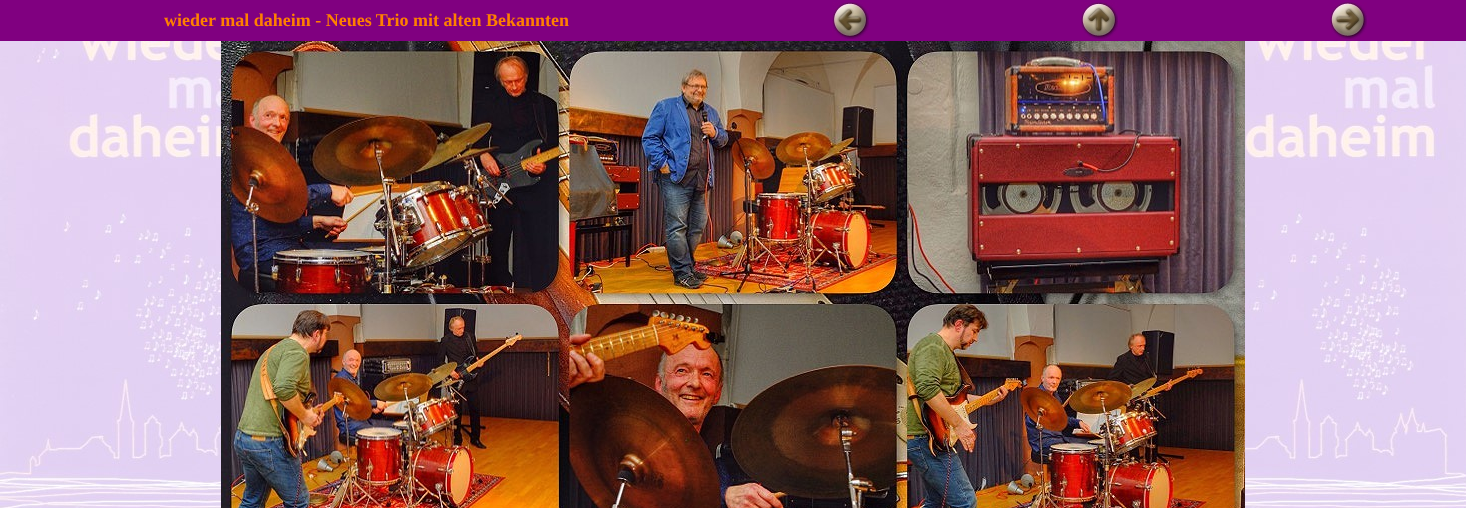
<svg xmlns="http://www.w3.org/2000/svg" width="1466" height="508">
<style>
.a{font:bold 18px Liberation Serif;fill:#ff8000}
</style>
<rect width="100%" height="100%" fill="#fff"/>
<image href="1.png" x="0" y="41" width="1466" height="467"/>
<path fill="#800080" d="M0 0h1466v41H0z"/>
<image href="2.png" x="832" y="2" width="37" height="37"/>
<image href="3.png" x="1081" y="2" width="37" height="37"/>
<image href="4.png" x="1330" y="2" width="37" height="37"/>
<image href="5.png" x="221" y="41" width="1024" height="467"/>
<text class="a" x="164" y="26">wieder mal daheim - Neues Trio mit alten Bekannten</text>
</svg>
